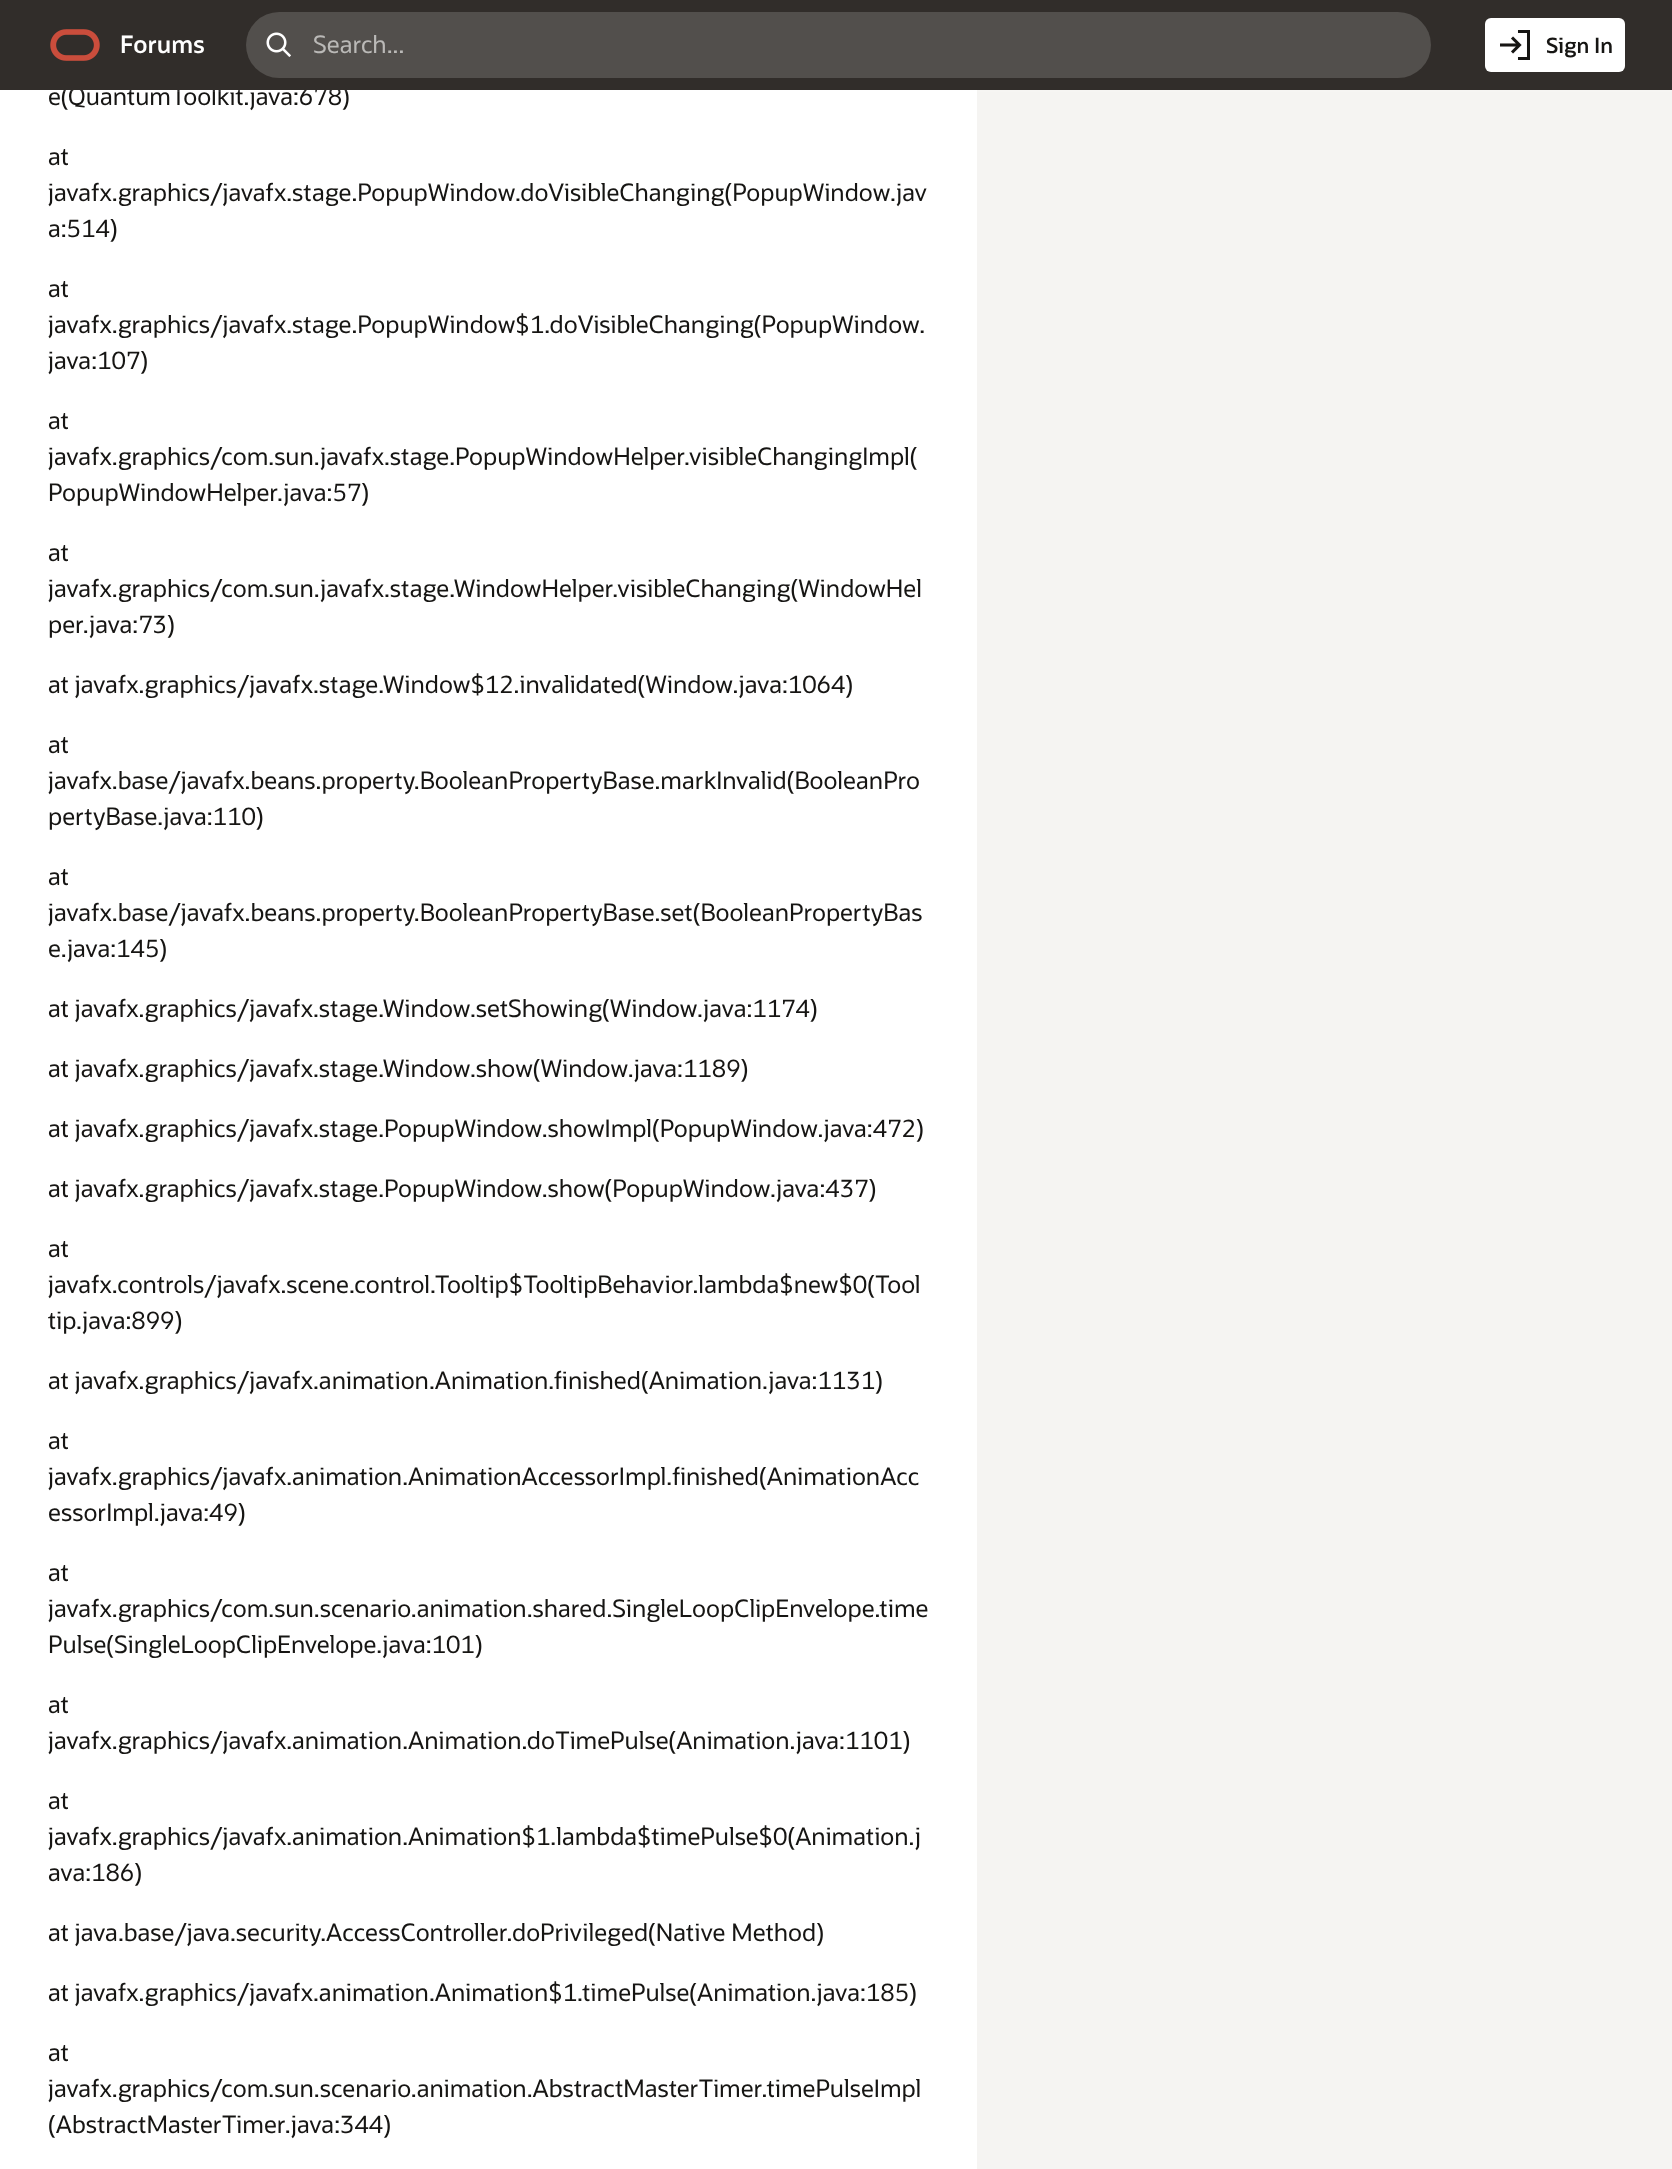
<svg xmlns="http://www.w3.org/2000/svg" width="1672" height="2169">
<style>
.a{font:24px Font;fill:#161513}
.b{font:600 21px Font;fill:#161513}
.c{font:24px Font;fill:#bab9b7}
.d{font:600 24px Font;fill:#fff}
</style>
<rect width="100%" height="100%" fill="#f5f4f2"/>
<path fill="#fff" d="M0 90h977v2079H0z"/>
<text class="a" x="48" y="105">e(QuantumToolkit.java:678)</text>
<path fill="none" stroke="#ffffff1a" stroke-width="2" d="M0 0h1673v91H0z"/>
<path fill="#312d2a" d="M0 0h1672v90H0z"/>
<rect fill="#524f4c" x="246" y="12" width="1185" height="66" rx="33"/>
<image href="2.png" x="266" y="32" width="25" height="25"/>
<rect fill="#fff" x="1485" y="18" width="140" height="54" rx="6"/>
<text class="b" x="1546" y="53">Sign In</text>
<image href="3.png" x="1500" y="30" width="30" height="30"/>
<text class="c" x="313" y="53">Search...</text>
<text class="d" x="120" y="53">Forums</text>
<image href="1.png" x="50" y="29" width="50" height="32"/>
<text class="a" x="48" y="165">at</text>
<text class="a" x="48" y="201">javafx.graphics/javafx.stage.PopupWindow.doVisibleChanging(PopupWindow.jav</text>
<text class="a" x="48" y="237">a:514)</text>
<text class="a" x="48" y="297">at</text>
<text class="a" x="48" y="333">javafx.graphics/javafx.stage.PopupWindow$1.doVisibleChanging(PopupWindow.</text>
<text class="a" x="48" y="369">java:107)</text>
<text class="a" x="48" y="429">at</text>
<text class="a" x="48" y="465">javafx.graphics/com.sun.javafx.stage.PopupWindowHelper.visibleChangingImpl(</text>
<text class="a" x="48" y="501">PopupWindowHelper.java:57)</text>
<text class="a" x="48" y="561">at</text>
<text class="a" x="48" y="597">javafx.graphics/com.sun.javafx.stage.WindowHelper.visibleChanging(WindowHel</text>
<text class="a" x="48" y="633">per.java:73)</text>
<text class="a" x="48" y="693">at javafx.graphics/javafx.stage.Window$12.invalidated(Window.java:1064)</text>
<text class="a" x="48" y="753">at</text>
<text class="a" x="48" y="789">javafx.base/javafx.beans.property.BooleanPropertyBase.markInvalid(BooleanPro</text>
<text class="a" x="48" y="825">pertyBase.java:110)</text>
<text class="a" x="48" y="885">at</text>
<text class="a" x="48" y="921">javafx.base/javafx.beans.property.BooleanPropertyBase.set(BooleanPropertyBas</text>
<text class="a" x="48" y="957">e.java:145)</text>
<text class="a" x="48" y="1017">at javafx.graphics/javafx.stage.Window.setShowing(Window.java:1174)</text>
<text class="a" x="48" y="1077">at javafx.graphics/javafx.stage.Window.show(Window.java:1189)</text>
<text class="a" x="48" y="1137">at javafx.graphics/javafx.stage.PopupWindow.showImpl(PopupWindow.java:472)</text>
<text class="a" x="48" y="1197">at javafx.graphics/javafx.stage.PopupWindow.show(PopupWindow.java:437)</text>
<text class="a" x="48" y="1257">at</text>
<text class="a" x="48" y="1293">javafx.controls/javafx.scene.control.Tooltip$TooltipBehavior.lambda$new$0(Tool</text>
<text class="a" x="48" y="1329">tip.java:899)</text>
<text class="a" x="48" y="1389">at javafx.graphics/javafx.animation.Animation.finished(Animation.java:1131)</text>
<text class="a" x="48" y="1449">at</text>
<text class="a" x="48" y="1485">javafx.graphics/javafx.animation.AnimationAccessorImpl.finished(AnimationAcc</text>
<text class="a" x="48" y="1521">essorImpl.java:49)</text>
<text class="a" x="48" y="1581">at</text>
<text class="a" x="48" y="1617">javafx.graphics/com.sun.scenario.animation.shared.SingleLoopClipEnvelope.time</text>
<text class="a" x="48" y="1653">Pulse(SingleLoopClipEnvelope.java:101)</text>
<text class="a" x="48" y="1713">at</text>
<text class="a" x="48" y="1749">javafx.graphics/javafx.animation.Animation.doTimePulse(Animation.java:1101)</text>
<text class="a" x="48" y="1809">at</text>
<text class="a" x="48" y="1845">javafx.graphics/javafx.animation.Animation$1.lambda$timePulse$0(Animation.j</text>
<text class="a" x="48" y="1881">ava:186)</text>
<text class="a" x="48" y="1941">at java.base/java.security.AccessController.doPrivileged(Native Method)</text>
<text class="a" x="48" y="2001">at javafx.graphics/javafx.animation.Animation$1.timePulse(Animation.java:185)</text>
<text class="a" x="48" y="2061">at</text>
<text class="a" x="48" y="2097">javafx.graphics/com.sun.scenario.animation.AbstractMasterTimer.timePulseImpl</text>
<text class="a" x="48" y="2133">(AbstractMasterTimer.java:344)</text>
</svg>
